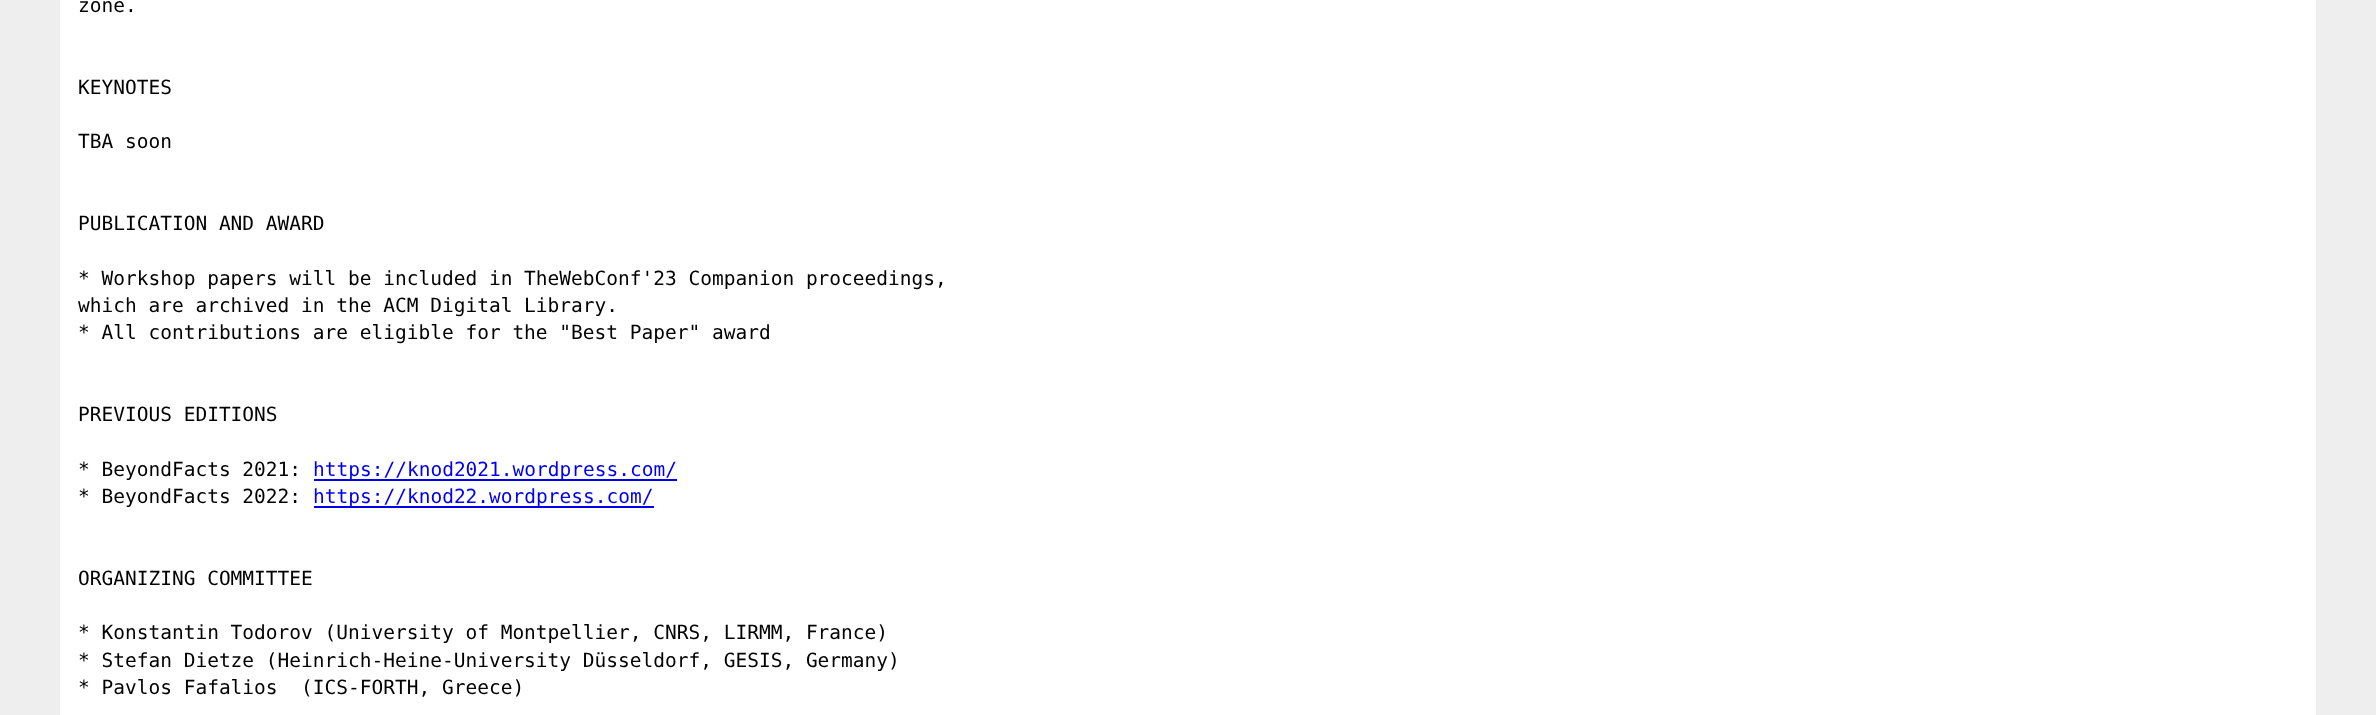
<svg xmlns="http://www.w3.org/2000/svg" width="2376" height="715">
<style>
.a{font:19.5px DejaVu Sans Mono;fill:#000}
.b{font:19.5px DejaVu Sans Mono;fill:#00e}
</style>
<rect width="100%" height="100%" fill="#eee"/>
<path fill="#fff" d="M60 0h2256v715H60z"/>
<path fill="#00e" d="M314 479h363v2H314z"/>
<path fill="#00e" d="M314 506h340v2H314z"/>
<text class="a" x="78" y="12">zone.</text>
<text class="a" x="78" y="94">KEYNOTES</text>
<text class="a" x="78" y="148">TBA soon</text>
<text class="a" x="78" y="230">PUBLICATION AND AWARD</text>
<text class="a" x="78" y="285">* Workshop papers will be included in TheWebConf'23 Companion proceedings,</text>
<text class="a" x="78" y="312">which are archived in the ACM Digital Library.</text>
<text class="a" x="78" y="339">* All contributions are eligible for the "Best Paper" award</text>
<text class="a" x="78" y="421">PREVIOUS EDITIONS</text>
<text class="a" x="78" y="476">* BeyondFacts 2021:</text>
<text class="b" x="313" y="476">https://knod2021.wordpress.com/</text>
<text class="a" x="78" y="503">* BeyondFacts 2022:</text>
<text class="b" x="313" y="503">https://knod22.wordpress.com/</text>
<text class="a" x="78" y="585">ORGANIZING COMMITTEE</text>
<text class="a" x="78" y="639">* Konstantin Todorov (University of Montpellier, CNRS, LIRMM, France)</text>
<text class="a" x="78" y="667">* Stefan Dietze (Heinrich-Heine-University Düsseldorf, GESIS, Germany)</text>
<text class="a" xml:space="preserve" x="78" y="694">* Pavlos Fafalios  (ICS-FORTH, Greece)</text>
</svg>
